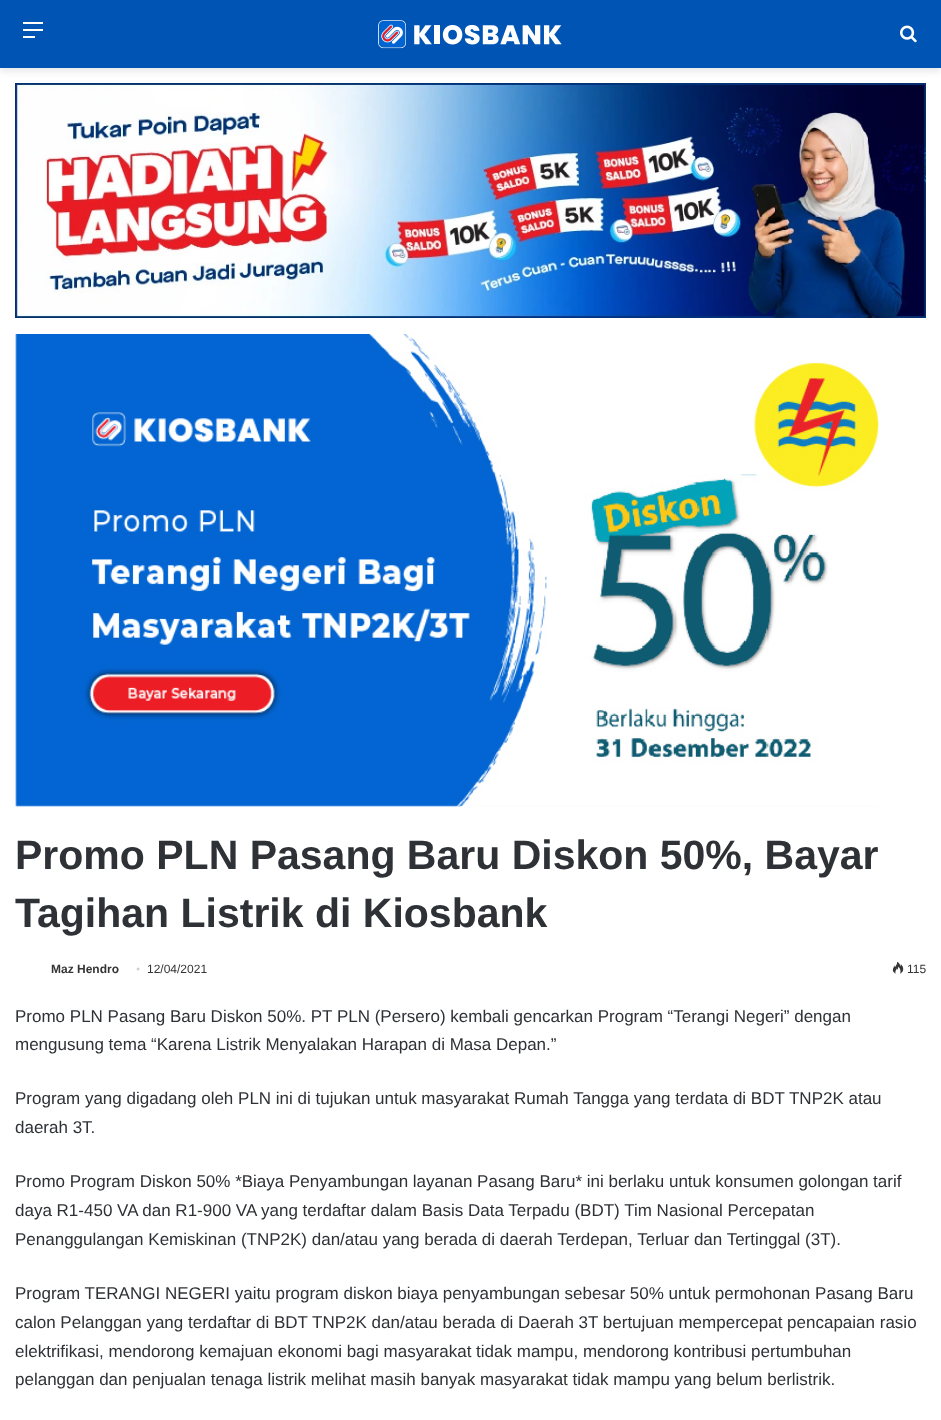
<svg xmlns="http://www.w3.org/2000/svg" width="941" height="1420">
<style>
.a{font:bold 41px Liberation Sans;fill:#2e3136}
.b{font:bold 12px Liberation Sans;fill:#353535}
.c{font:12px Liberation Serif;fill:#cdcdcd}
.d{font:12px Liberation Sans;fill:#353535}
.e{font:17px Liberation Sans;fill:#2e3136}
</style>
<rect width="100%" height="100%" fill="#fff"/>
<path fill="#0000001a" filter="blur(3.5px)" d="M0 3h941v68H0z"/>
<path fill="#0054b3" d="M0 0h941v68H0z"/>
<path fill="#fff" d="M23 29h20v2H23z"/>
<path fill="#fff" d="M23 22h20v2H23z"/>
<path fill="#fff" d="M23 36h12v2H23z"/>
<image href="1.png" x="378" y="20" width="184" height="29"/>
<image href="2.png" x="900" y="25" width="17" height="18"/>
<image href="3.png" x="15" y="83" width="911" height="235"/>
<image href="4.png" x="15" y="334" width="864" height="473"/>
<image href="5.png" x="892" y="961" width="12" height="13"/>
<text class="a" x="15" y="869">Promo PLN Pasang Baru Diskon 50%, Bayar</text>
<text class="a" x="15" y="927">Tagihan Listrik di Kiosbank</text>
<text class="b" x="51" y="973">Maz Hendro</text>
<text class="c" x="136" y="973">•</text>
<text class="d" x="147" y="973">12/04/2021</text>
<text class="d" x="907" y="973">115</text>
<text class="e" x="15" y="1022">Promo PLN Pasang Baru Diskon 50%. PT PLN (Persero) kembali gencarkan Program “Terangi Negeri” dengan</text>
<text class="e" x="15" y="1050">mengusung tema “Karena Listrik Menyalakan Harapan di Masa Depan.”</text>
<text class="e" x="15" y="1104">Program yang digadang oleh PLN ini di tujukan untuk masyarakat Rumah Tangga yang terdata di BDT TNP2K atau</text>
<text class="e" x="15" y="1133">daerah 3T.</text>
<text class="e" x="15" y="1187">Promo Program Diskon 50% *Biaya Penyambungan layanan Pasang Baru* ini berlaku untuk konsumen golongan tarif</text>
<text class="e" x="15" y="1216">daya R1-450 VA dan R1-900 VA yang terdaftar dalam Basis Data Terpadu (BDT) Tim Nasional Percepatan</text>
<text class="e" x="15" y="1245">Penanggulangan Kemiskinan (TNP2K) dan/atau yang berada di daerah Terdepan, Terluar dan Tertinggal (3T).</text>
<text class="e" x="15" y="1299">Program TERANGI NEGERI yaitu program diskon biaya penyambungan sebesar 50% untuk permohonan Pasang Baru</text>
<text class="e" x="15" y="1328">calon Pelanggan yang terdaftar di BDT TNP2K dan/atau berada di Daerah 3T bertujuan mempercepat pencapaian rasio</text>
<text class="e" x="15" y="1357">elektrifikasi, mendorong kemajuan ekonomi bagi masyarakat tidak mampu, mendorong kontribusi pertumbuhan</text>
<text class="e" x="15" y="1385">pelanggan dan penjualan tenaga listrik melihat masih banyak masyarakat tidak mampu yang belum berlistrik.</text>
</svg>
